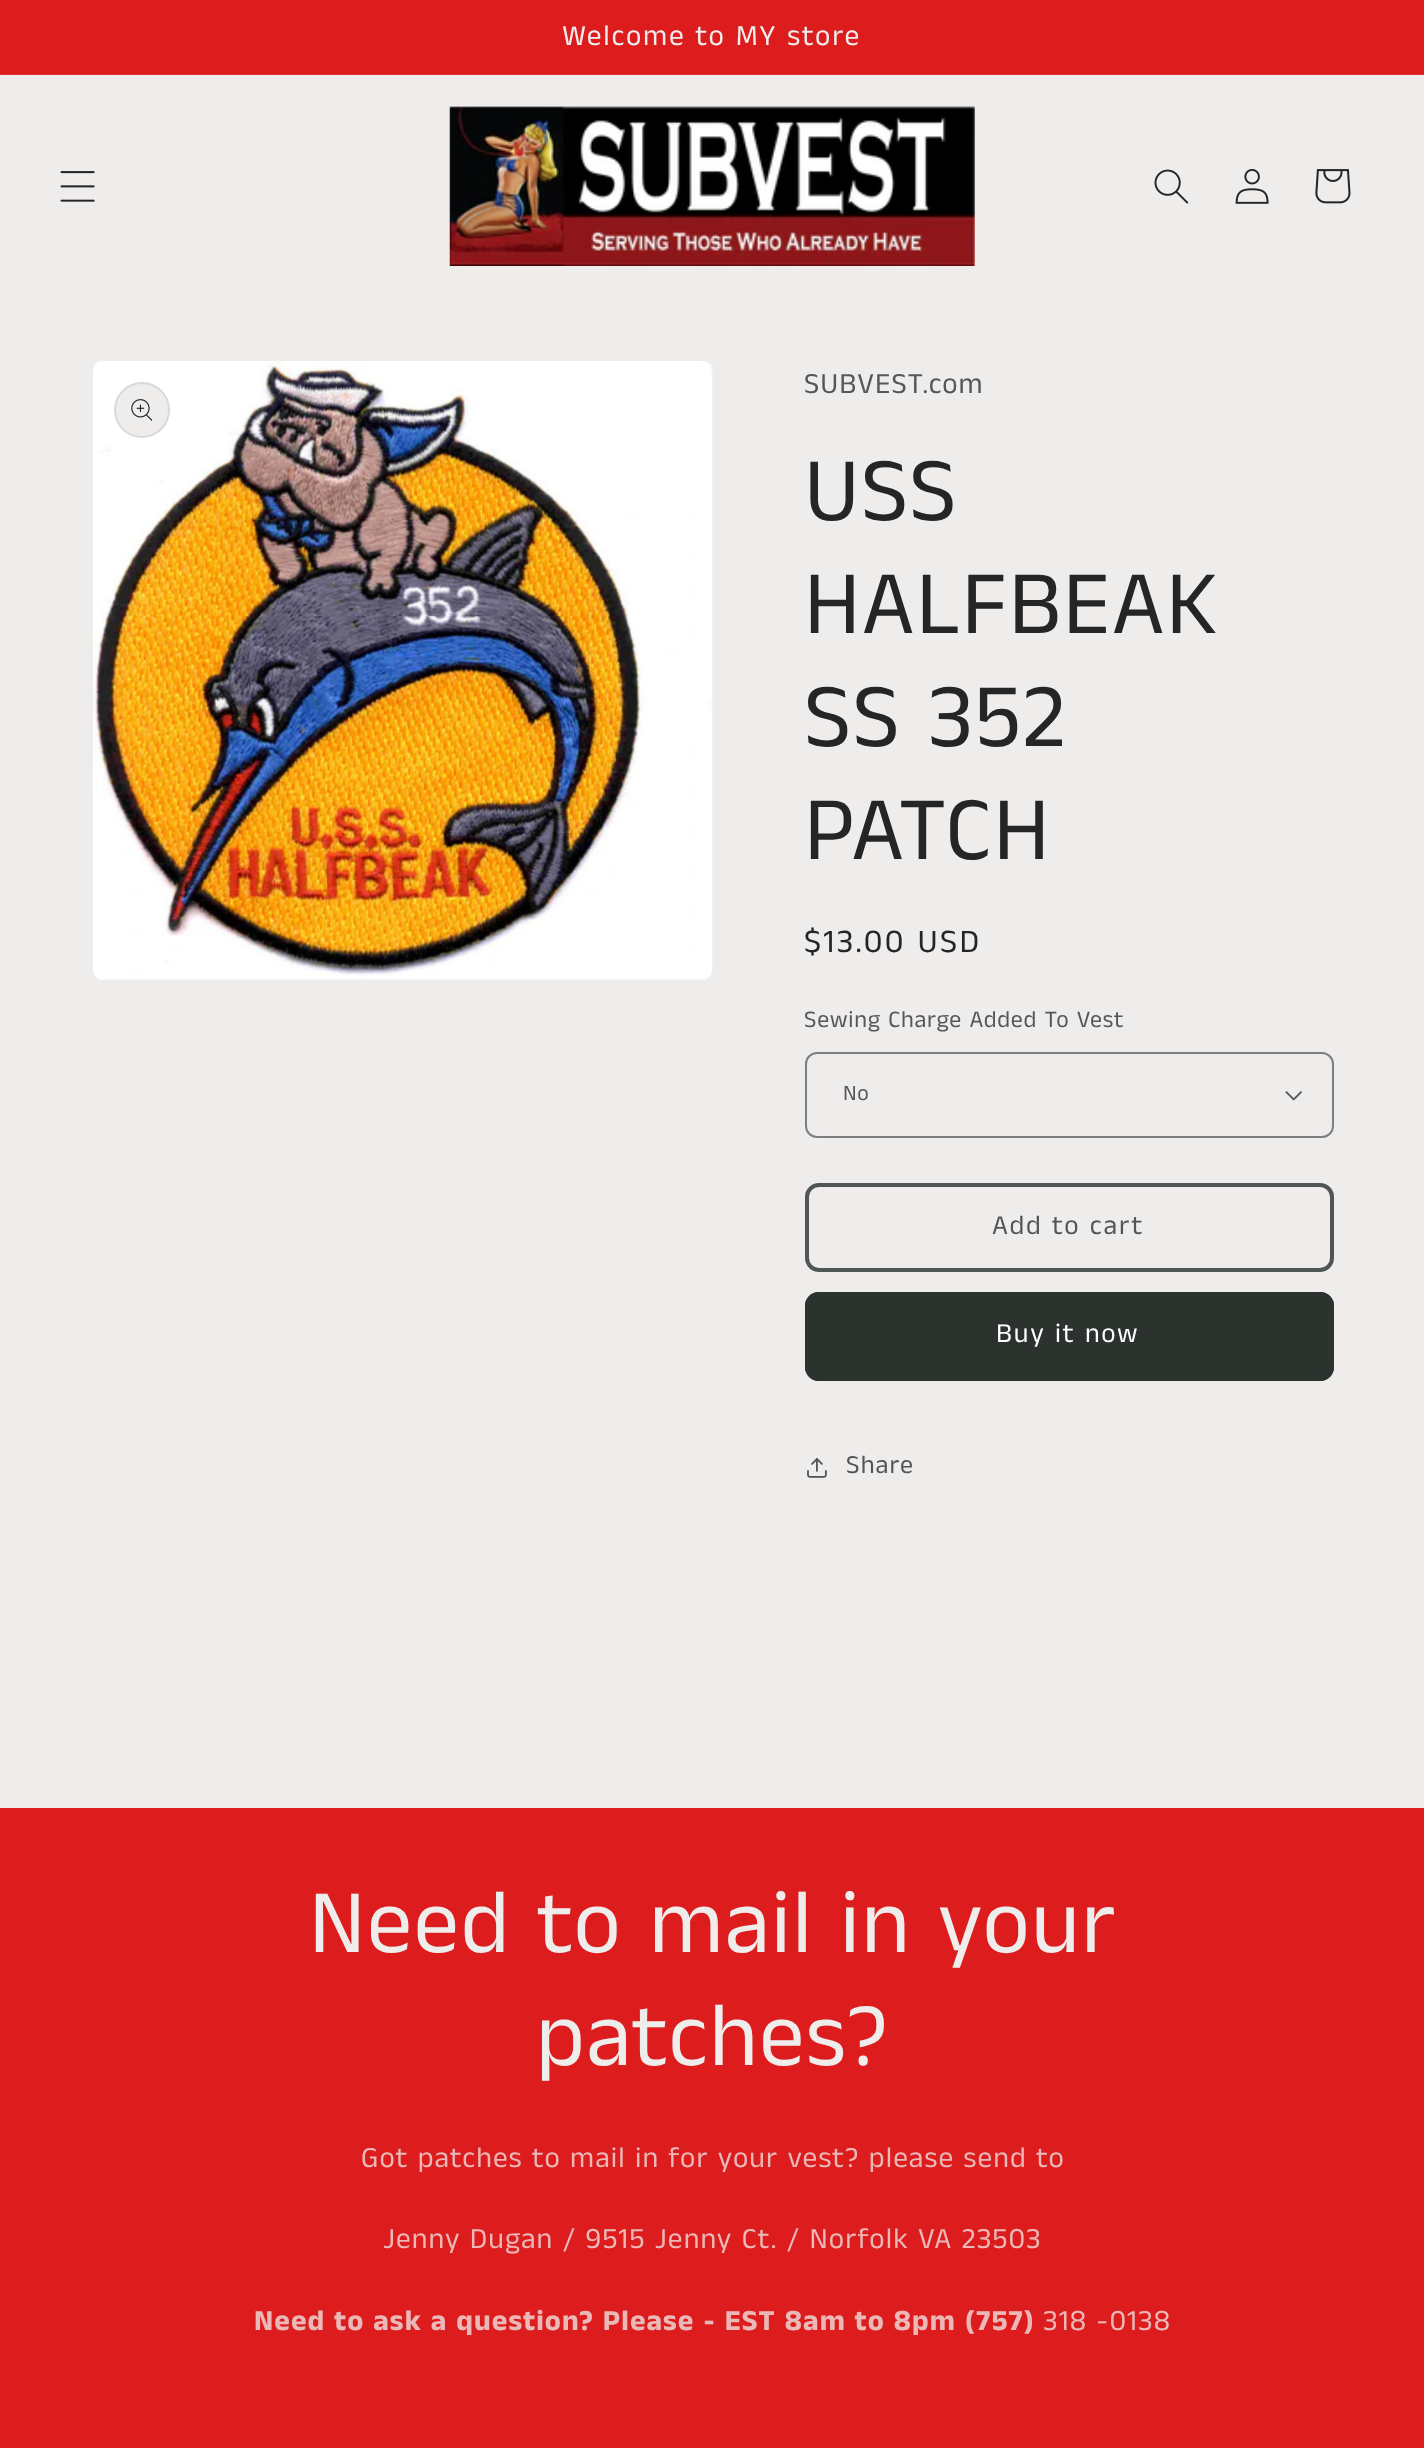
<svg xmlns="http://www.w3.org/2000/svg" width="1424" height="2448">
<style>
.a{font:29.5px Anek Tamil;letter-spacing:1.8px;fill:#efecec}
.b{font:29.4px Anek Tamil;letter-spacing:1.1px;fill:#585757}
.c{font:91px Anek Tamil;letter-spacing:1.4px;fill:#252525}
.d{font:33px Anek Tamil;letter-spacing:2.4px;fill:#252525}
.e{font:23.9px Anek Tamil;letter-spacing:0.75px;fill:#585757}
.f{font:22px Anek Tamil;letter-spacing:0.75px;fill:#585757}
.g{font:27.5px Anek Tamil;letter-spacing:1.8px;fill:#505655}
.h{font:27.5px Anek Tamil;letter-spacing:1.8px;fill:#fff}
.i{font:26px Anek Tamil;letter-spacing:1.1px;fill:#505655}
.j{font:91px Anek Tamil;letter-spacing:1.4px;fill:#efecec}
.k{font:29.4px Anek Tamil;letter-spacing:1.1px;fill:#ebb8b8}
.l{font:bold 29.4px Anek Tamil;letter-spacing:1.1px;fill:#ebb8b8}
</style>
<rect width="100%" height="100%" fill="#efecec"/>
<path fill="#dd1d1d" d="M0 0h1424v74H0z"/>
<path fill="#de2e2e" d="M0 74h1424v1H0z"/>
<image href="1.png" x="60" y="171" width="35" height="31"/>
<image href="2.png" x="449" y="106" width="526" height="160"/>
<image href="3.png" x="1154" y="169" width="35" height="35"/>
<image href="4.png" x="1235" y="169" width="34" height="35"/>
<image href="5.png" x="1315" y="169" width="36" height="35"/>
<image href="6.png" x="93" y="361" width="620" height="619"/>
<circle fill="#efecec" cx="142" cy="410" r="28"/>
<circle fill="none" stroke="#2525251a" stroke-width="2" cx="142" cy="410" r="27"/>
<image href="7.png" x="131" y="399" width="21" height="22"/>
<image href="8.png" x="1285" y="1091" width="17" height="10"/>
<rect fill="none" stroke="#807f7f" stroke-width="2" x="806" y="1053" width="527" height="84" rx="11"/>
<rect fill="none" stroke="#505655" stroke-width="4" x="807" y="1185" width="525" height="85" rx="12"/>
<rect fill="#2c332f" x="805" y="1292" width="529" height="89" rx="14"/>
<rect fill="none" stroke="#2c332f" stroke-width="4" x="807" y="1294" width="525" height="85" rx="12"/>
<image href="9.png" x="807" y="1458" width="20" height="20"/>
<path fill="#dd1d1d" d="M0 1808h1424v640H0z"/>
<text class="a" x="562" y="45">Welcome to MY store</text>
<text class="b" x="804" y="393">SUBVEST.com</text>
<text class="c" x="804" y="520">USS</text>
<text class="c" x="804" y="633">HALFBEAK</text>
<text class="c" x="804" y="746">SS 352</text>
<text class="c" x="804" y="859">PATCH</text>
<text class="d" x="804" y="952">$13.00 USD</text>
<text class="e" x="804" y="1027">Sewing Charge Added To Vest</text>
<text class="f" x="843" y="1100">No</text>
<text class="g" x="992" y="1234">Add to cart</text>
<text class="h" x="996" y="1342">Buy it now</text>
<text class="i" x="846" y="1473">Share</text>
<text class="j" x="309" y="1952">Need to mail in your</text>
<text class="j" x="536" y="2065">patches?</text>
<text class="k" x="361" y="2167">Got patches to mail in for your vest? please send to</text>
<text class="k" x="383" y="2248">Jenny Dugan / 9515 Jenny Ct. / Norfolk VA 23503</text>
<text class="l" x="254" y="2330">Need to ask a question? Please - EST 8am to 8pm (757)</text>
<text class="k" x="1043" y="2330">318 -0138</text>
</svg>
